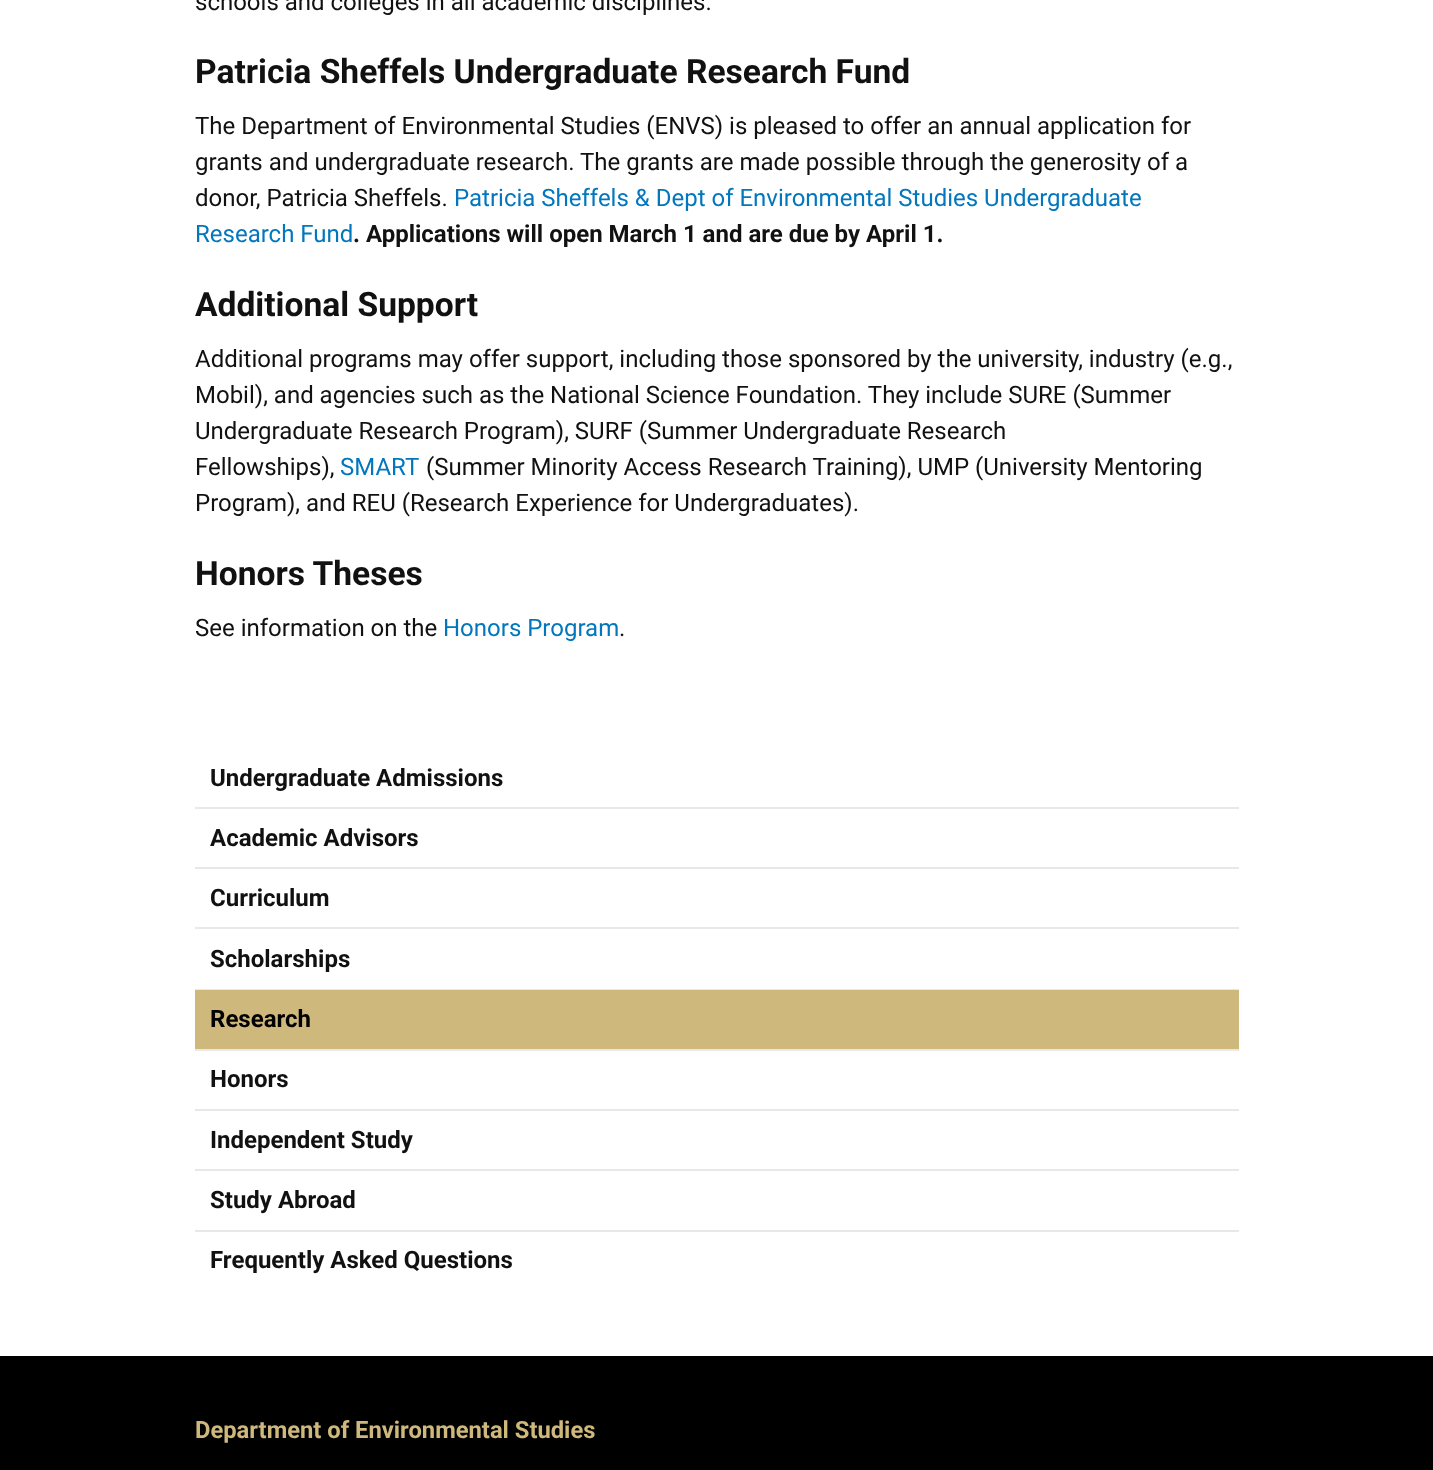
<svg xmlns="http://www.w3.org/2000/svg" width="1433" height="1470">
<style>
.a{font:24px Roboto;fill:#111}
.b{font:bold 33.6px Roboto;fill:#111}
.c{font:24px Roboto;fill:#0277bd}
.d{font:bold 24px Roboto;fill:#111}
.e{font:bold 24px Roboto;fill:#000}
.f{font:bold 23.75px Roboto;fill:#cfb87c}
</style>
<rect width="100%" height="100%" fill="#fff"/>
<path fill="#e8e8e8" d="M195 807h1044v2H195z"/>
<path fill="#e8e8e8" d="M195 867h1044v2H195z"/>
<path fill="#e8e8e8" d="M195 927h1044v2H195z"/>
<path fill="#e8e8e8" d="M195 989h1044v1H195z"/>
<path fill="#e8e8e8" d="M195 1049h1044v2H195z"/>
<path fill="#cfb87b" d="M195 990h1044v59H195z"/>
<path fill="#e8e8e8" d="M195 1109h1044v2H195z"/>
<path fill="#e8e8e8" d="M195 1169h1044v2H195z"/>
<path fill="#e8e8e8" d="M195 1230h1044v2H195z"/>
<path fill="#000" d="M0 1356h1433v114H0z"/>
<text class="a" x="195" y="10">schools and colleges in all academic disciplines.</text>
<text class="b" x="195" y="83">Patricia Sheffels Undergraduate Research Fund</text>
<text class="a" x="195" y="134">The Department of Environmental Studies (ENVS) is pleased to offer an annual application for</text>
<text class="a" x="195" y="170">grants and undergraduate research. The grants are made possible through the generosity of a</text>
<text class="a" x="195" y="206">donor, Patricia Sheffels.</text>
<text class="c" x="454" y="206">Patricia Sheffels &amp; Dept of Environmental Studies Undergraduate</text>
<text class="c" x="195" y="242">Research Fund</text>
<text class="d" x="353" y="242">. Applications will open March 1 and are due by April 1.</text>
<text class="b" x="195" y="316">Additional Support</text>
<text class="a" x="195" y="367">Additional programs may offer support, including those sponsored by the university, industry (e.g.,</text>
<text class="a" x="195" y="403">Mobil), and agencies such as the National Science Foundation. They include SURE (Summer</text>
<text class="a" x="195" y="439">Undergraduate Research Program), SURF (Summer Undergraduate Research</text>
<text class="a" x="195" y="475">Fellowships),</text>
<text class="c" x="340" y="475">SMART</text>
<text class="a" x="426" y="475">(Summer Minority Access Research Training), UMP (University Mentoring</text>
<text class="a" x="195" y="511">Program), and REU (Research Experience for Undergraduates).</text>
<text class="b" x="195" y="585">Honors Theses</text>
<text class="a" x="195" y="636">See information on the</text>
<text class="c" x="443" y="636">Honors Program</text>
<text class="a" x="619" y="636">.</text>
<text class="d" x="210" y="786">Undergraduate Admissions</text>
<text class="d" x="210" y="846">Academic Advisors</text>
<text class="d" x="210" y="906">Curriculum</text>
<text class="d" x="210" y="967">Scholarships</text>
<text class="e" x="210" y="1027">Research</text>
<text class="d" x="210" y="1087">Honors</text>
<text class="d" x="210" y="1148">Independent Study</text>
<text class="d" x="210" y="1208">Study Abroad</text>
<text class="d" x="210" y="1268">Frequently Asked Questions</text>
<text class="f" x="195" y="1438">Department of Environmental Studies</text>
</svg>
